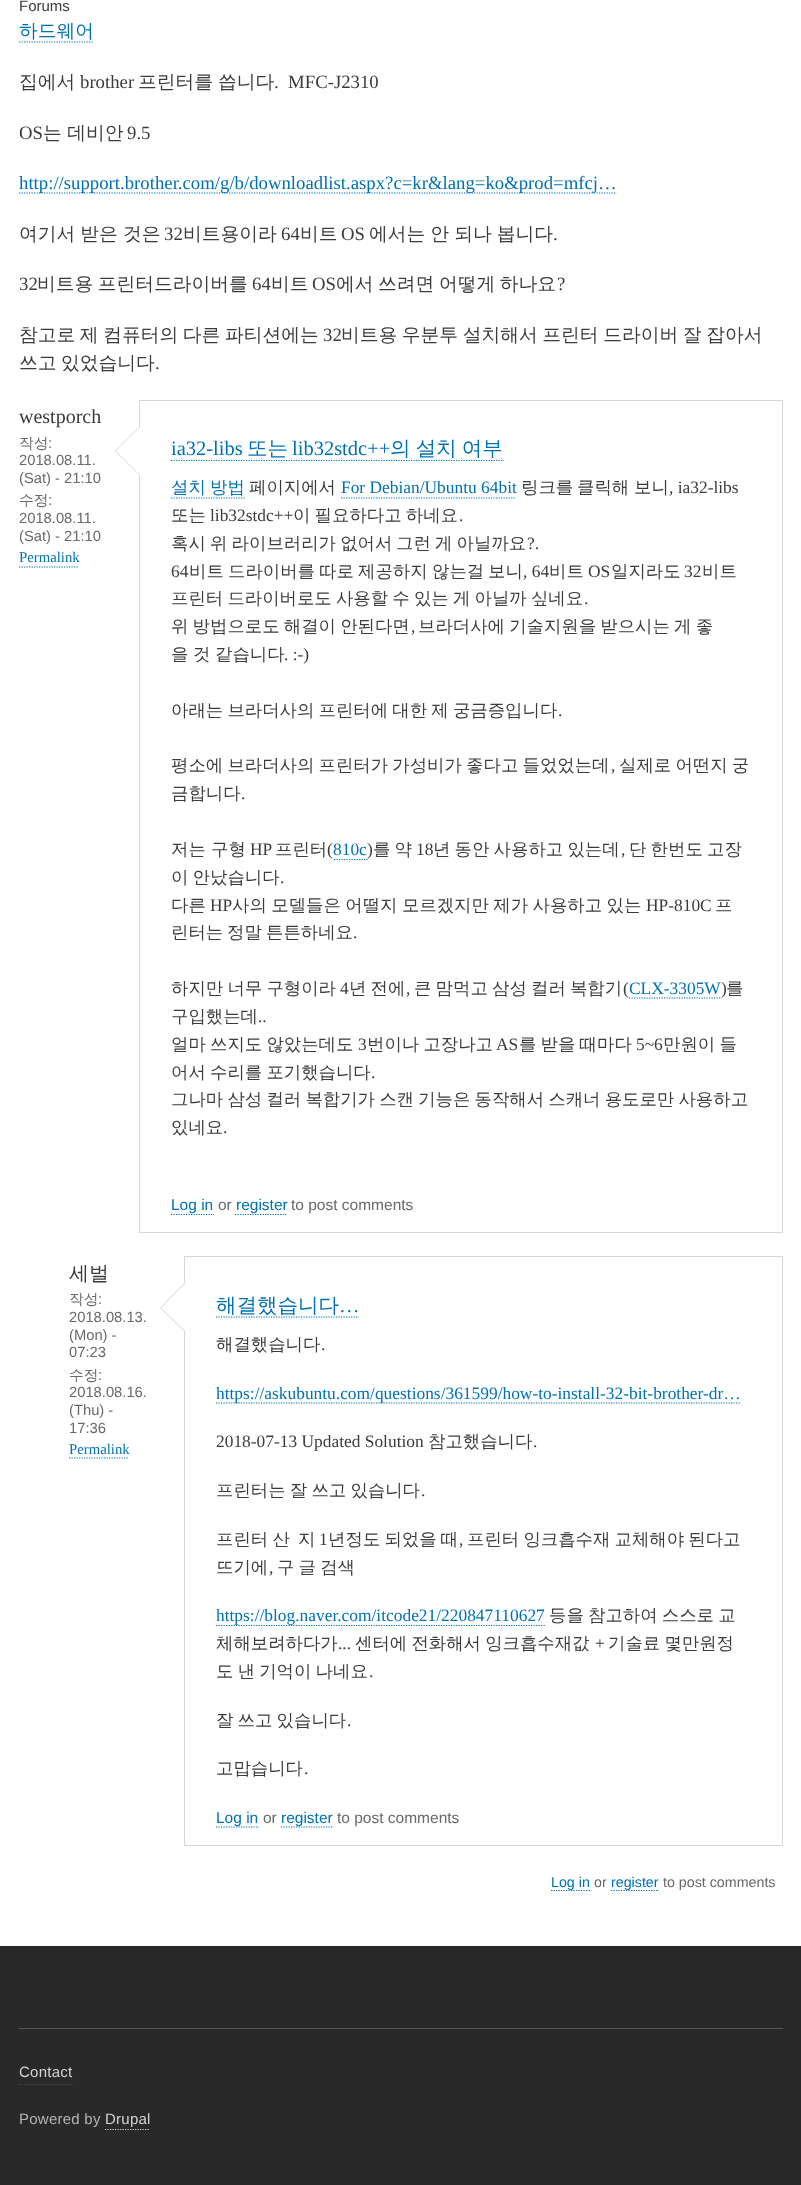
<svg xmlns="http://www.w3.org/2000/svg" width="801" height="2185">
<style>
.a{font:15px Liberation Sans;fill:#3b3b3b}
.b{font:500 18.75px WenQuanYi Zen Hei;fill:#0071b3}
.c{font:500 18.75px WenQuanYi Zen Hei;fill:#3b3b3b}
.d{font:18.75px Liberation Serif;fill:#3b3b3b}
.e{font:18.75px Liberation Serif;fill:#0071b3}
.f{font:20px Liberation Serif;fill:#3b3b3b}
.g{font:500 14.75px WenQuanYi Zen Hei;fill:#68696b}
.h{font:14.75px Liberation Sans;fill:#68696b}
.i{font:14.75px Liberation Serif;fill:#0071b3}
.j{font:20.5px Liberation Serif;fill:#0071b3}
.k{font:500 20.5px WenQuanYi Zen Hei;fill:#0071b3}
.l{font:500 17.4px WenQuanYi Zen Hei;fill:#0071b3}
.m{font:500 17.4px WenQuanYi Zen Hei;fill:#3b3b3b}
.n{font:17.4px Liberation Serif;fill:#0071b3}
.o{font:17.4px Liberation Serif;fill:#3b3b3b}
.p{font:15.5px Liberation Sans;fill:#0071b3}
.q{font:15.5px Liberation Sans;fill:#68696b}
.r{font:500 20px WenQuanYi Zen Hei;fill:#3b3b3b}
.s{font:14.25px Liberation Sans;fill:#0071b3}
.t{font:14.25px Liberation Sans;fill:#68696b}
.u{font:15px Liberation Sans;letter-spacing:0.25px;fill:#d4d4d4}
.v{font:15px Liberation Sans;letter-spacing:0.25px;fill:#b4b4b4}
</style>
<rect width="100%" height="100%" fill="#fff"/>
<path fill="none" stroke="#0071b3" stroke-width="1.2" stroke-dasharray="1.25 1.25" d="M19 42h75"/>
<path fill="none" stroke="#0071b3" stroke-width="1.2" stroke-dasharray="1.25 1.25" d="M19 193h597"/>
<path fill="none" stroke="#0071b3" stroke-width="1.2" stroke-dasharray="1.25 1.25" d="M19 567h60"/>
<path fill="none" stroke="#d3d7d9" d="M139.5 400.5h643v832H139.5z"/>
<path fill="#d3d7d9" d="M140 426v50l-25-25z"/>
<path fill="#fff" d="M141 426v50l-25-25z"/>
<path fill="none" stroke="#0071b3" stroke-width="1.2" stroke-dasharray="1.25 1.25" d="M171 460.5h333"/>
<path fill="none" stroke="#0071b3" stroke-width="1.2" stroke-dasharray="1.25 1.25" d="M171 498h74"/>
<path fill="none" stroke="#0071b3" stroke-width="1.2" stroke-dasharray="1.25 1.25" d="M341 498h175"/>
<path fill="none" stroke="#0071b3" stroke-width="1.2" stroke-dasharray="1.25 1.25" d="M334 859.5h33.5"/>
<path fill="none" stroke="#0071b3" stroke-width="1.2" stroke-dasharray="1.25 1.25" d="M629 998h92"/>
<path fill="none" stroke="#0071b3" stroke-width="1.2" stroke-dasharray="1.25 1.25" d="M171 1214.5h43"/>
<path fill="none" stroke="#0071b3" stroke-width="1.2" stroke-dasharray="1.25 1.25" d="M235 1214.5h52.5"/>
<path fill="none" stroke="#0071b3" stroke-width="1.2" stroke-dasharray="1.25 1.25" d="M69 1458h60"/>
<path fill="none" stroke="#d3d7d9" d="M184.5 1256.5h598v589H184.5z"/>
<path fill="#d3d7d9" d="M185 1282v50l-25-24z"/>
<path fill="#fff" d="M186 1282v50l-25-24z"/>
<path fill="none" stroke="#0071b3" stroke-width="1.2" stroke-dasharray="1.25 1.25" d="M216 1317h143"/>
<path fill="none" stroke="#0071b3" stroke-width="1.2" stroke-dasharray="1.25 1.25" d="M216 1403h525"/>
<path fill="none" stroke="#0071b3" stroke-width="1.2" stroke-dasharray="1.25 1.25" d="M216 1625.5h329"/>
<path fill="none" stroke="#0071b3" stroke-width="1.2" stroke-dasharray="1.25 1.25" d="M216 1827h43"/>
<path fill="none" stroke="#0071b3" stroke-width="1.2" stroke-dasharray="1.25 1.25" d="M281 1827h51.5"/>
<path fill="none" stroke="#0071b3" stroke-width="1.2" stroke-dasharray="1.25 1.25" d="M551 1890.5h39"/>
<path fill="none" stroke="#0071b3" stroke-width="1.2" stroke-dasharray="1.25 1.25" d="M611 1890.5h48"/>
<path fill="#292929" d="M0 1946h801v239H0z"/>
<path fill="#555" d="M19 2028h764v1H19z"/>
<path fill="none" stroke="#494949" stroke-width="1.2" stroke-dasharray="1.25 1.25" d="M19 2084.5h53.5"/>
<path fill="none" stroke="#d4d4d4" stroke-width="1.2" stroke-dasharray="1.25 1.25" d="M105 2129.5h45"/>
<text class="a" x="19" y="11">Forums</text>
<text class="b" x="19" y="37">하드웨어</text>
<text class="c" x="19" y="88">집에서</text>
<text class="d" x="80" y="88">brother</text>
<text class="c" x="138" y="88">프린터를</text>
<text class="c" x="218" y="88">씁니다</text>
<text class="d" xml:space="preserve" x="274" y="88">.  MFC-J2310</text>
<text class="d" x="19" y="139">OS</text>
<text class="c" x="43" y="139">는 데비안</text>
<text class="d" x="127" y="139">9.5</text>
<text class="e" x="19" y="189">http://support.brother.com/g/b/downloadlist.aspx?c=kr&amp;lang=ko&amp;prod=mfcj…</text>
<text class="c" x="19" y="240" word-spacing="-0.5">여기서 받은 것은</text>
<text class="d" x="164" y="240">32</text>
<text class="c" x="183" y="240">비트용이라</text>
<text class="d" x="281" y="240">64</text>
<text class="c" x="300" y="240">비트</text>
<text class="d" x="341" y="240">OS</text>
<text class="c" x="369" y="240" word-spacing="-0.5">에서는 안 되나 봅니다</text>
<text class="d" x="553" y="240">.</text>
<text class="d" x="19" y="290">32</text>
<text class="c" x="37" y="290" word-spacing="-1">비트용 프린터드라이버를</text>
<text class="d" x="252" y="290">64</text>
<text class="c" x="271" y="290">비트</text>
<text class="d" x="312" y="290">OS</text>
<text class="c" x="336" y="290" word-spacing="-1">에서 쓰려면 어떻게 하나요</text>
<text class="d" x="557" y="290">?</text>
<text class="c" x="19" y="341" word-spacing="-1">참고로 제 컴퓨터의 다른 파티션에는</text>
<text class="d" x="323" y="341">32</text>
<text class="c" x="341" y="341" word-spacing="-1">비트용 우분투 설치해서 프린터 드라이버 잘 잡아서</text>
<text class="c" x="19" y="369" word-spacing="-1">쓰고 있었습니다</text>
<text class="d" x="155" y="369">.</text>
<text class="f" x="19" y="423">westporch</text>
<text class="g" x="19" y="448">작성</text>
<text class="h" x="48" y="448">:</text>
<text class="h" x="19" y="465">2018.08.11.</text>
<text class="h" x="19" y="483">(Sat) - 21:10</text>
<text class="g" x="19" y="505">수정</text>
<text class="h" x="48" y="505">:</text>
<text class="h" x="19" y="523">2018.08.11.</text>
<text class="h" x="19" y="541">(Sat) - 21:10</text>
<text class="i" x="19" y="562">Permalink</text>
<text class="j" x="171" y="455">ia32-libs</text>
<text class="k" x="247" y="455">또는</text>
<text class="j" x="292" y="455">lib32stdc++</text>
<text class="k" x="390" y="455" word-spacing="-1">의 설치 여부</text>
<text class="l" x="171" y="493" word-spacing="-1">설치 방법</text>
<text class="m" x="249" y="493">페이지에서</text>
<text class="n" x="341" y="493">For Debian/Ubuntu 64bit</text>
<text class="m" x="521" y="493">링크를</text>
<text class="m" x="577" y="493">클릭해</text>
<text class="m" x="634" y="493">보니</text>
<text class="o" x="669" y="493">, ia32-libs</text>
<text class="m" x="171" y="521">또는</text>
<text class="o" x="210" y="521">lib32stdc++</text>
<text class="m" x="293" y="521" word-spacing="-1">이 필요하다고 하네요</text>
<text class="o" x="459" y="521">.</text>
<text class="m" x="171" y="549" word-spacing="-1">혹시 위 라이브러리가 없어서</text>
<text class="m" x="396" y="549" word-spacing="-1">그런 게 아닐까요</text>
<text class="o" x="527" y="549">?.</text>
<text class="o" x="171" y="577">64</text>
<text class="m" x="189" y="577">비트</text>
<text class="m" x="228" y="577">드라이버를</text>
<text class="m" x="319" y="577">따로</text>
<text class="m" x="358" y="577">제공하지</text>
<text class="m" x="432" y="577">않는걸</text>
<text class="m" x="488" y="577">보니</text>
<text class="o" x="523" y="577">, 64</text>
<text class="m" x="549" y="577">비트</text>
<text class="o" x="588" y="577">OS</text>
<text class="m" x="611" y="577">일지라도</text>
<text class="o" x="684" y="577">32</text>
<text class="m" x="702" y="577">비트</text>
<text class="m" x="171" y="604" word-spacing="-1">프린터 드라이버로도 사용할 수 있는 게 아닐까 싶네요</text>
<text class="o" x="584" y="604">.</text>
<text class="m" x="171" y="632" word-spacing="-1">위 방법으로도 해결이 안된다면</text>
<text class="o" x="411" y="632">,</text>
<text class="m" x="418" y="632" word-spacing="-1">브라더사에 기술지원을 받으시는 게 좋</text>
<text class="m" x="171" y="660">을</text>
<text class="m" x="193" y="660">것</text>
<text class="m" x="215" y="660">같습니다</text>
<text class="o" x="284" y="660">. :-)</text>
<text class="m" x="171" y="716" word-spacing="-1">아래는 브라더사의 프린터에 대한 제 궁금증입니다</text>
<text class="o" x="558" y="716">.</text>
<text class="m" x="171" y="771" word-spacing="-1">평소에 브라더사의 프린터가 가성비가 좋다고 들었었는데</text>
<text class="o" x="611" y="771">,</text>
<text class="m" x="619" y="771" word-spacing="-1">실제로 어떤지 궁</text>
<text class="m" x="171" y="799">금합니다</text>
<text class="o" x="241" y="799">.</text>
<text class="m" x="171" y="855">저는 구형</text>
<text class="o" x="250" y="855">HP</text>
<text class="m" x="275" y="855">프린터</text>
<text class="o" x="327" y="855">(</text>
<text class="n" x="333" y="855">810c</text>
<text class="o" x="367" y="855">)</text>
<text class="m" x="373" y="855" word-spacing="-1">를 약</text>
<text class="o" x="416" y="855">18</text>
<text class="m" x="433" y="855" word-spacing="-1">년 동안 사용하고 있는데</text>
<text class="o" x="621" y="855">,</text>
<text class="m" x="629" y="855" word-spacing="-1">단 한번도 고장</text>
<text class="m" x="171" y="883" word-spacing="-1">이 안났습니다</text>
<text class="o" x="280" y="883">.</text>
<text class="m" x="171" y="911">다른</text>
<text class="o" x="210" y="911">HP</text>
<text class="m" x="232" y="911" word-spacing="-0.75">사의 모델들은 어떨지 모르겠지만 제가 사용하고 있는</text>
<text class="o" x="646" y="911">HP-810C</text>
<text class="m" x="715" y="911">프</text>
<text class="m" x="171" y="938">린터는</text>
<text class="m" x="227" y="938" word-spacing="-1">정말 튼튼하네요</text>
<text class="o" x="353" y="938">.</text>
<text class="m" x="171" y="994" word-spacing="-1">하지만 너무 구형이라</text>
<text class="o" x="340" y="994">4</text>
<text class="m" x="349" y="994" word-spacing="-1">년 전에</text>
<text class="o" x="406" y="994">,</text>
<text class="m" x="414" y="994" word-spacing="-1">큰 맘먹고 삼성 컬러 복합기</text>
<text class="o" x="623" y="994">(</text>
<text class="n" x="629" y="994">CLX-3305W</text>
<text class="o" x="721" y="994">)</text>
<text class="m" x="726" y="994">를</text>
<text class="m" x="171" y="1022">구입했는데</text>
<text class="o" x="258" y="1022">..</text>
<text class="m" x="171" y="1050" word-spacing="-1">얼마 쓰지도 않았는데도</text>
<text class="o" x="358" y="1050">3</text>
<text class="m" x="367" y="1050" word-spacing="-1">번이나 고장나고</text>
<text class="o" x="496" y="1050">AS</text>
<text class="m" x="519" y="1050" word-spacing="-1">를 받을 때마다</text>
<text class="o" x="636" y="1050">5~6</text>
<text class="m" x="663" y="1050" word-spacing="-1">만원이 들</text>
<text class="m" x="171" y="1078" word-spacing="-1">어서 수리를 포기했습니다</text>
<text class="o" x="371" y="1078">.</text>
<text class="m" x="171" y="1105" word-spacing="-1">그나마 삼성 컬러 복합기가 스캔 기능은 동작해서 스캐너 용도로만 사용하고</text>
<text class="m" x="171" y="1133">있네요</text>
<text class="o" x="223" y="1133">.</text>
<text class="p" x="171" y="1210">Log in</text>
<text class="q" x="218" y="1210">or</text>
<text class="p" x="236" y="1210">register</text>
<text class="q" x="291" y="1210">to post comments</text>
<text class="r" x="69" y="1280">세벌</text>
<text class="g" x="69" y="1304">작성</text>
<text class="h" x="98" y="1304">:</text>
<text class="h" x="69" y="1322">2018.08.13.</text>
<text class="h" x="69" y="1340">(Mon) -</text>
<text class="h" x="69" y="1357">07:23</text>
<text class="g" x="69" y="1380">수정</text>
<text class="h" x="98" y="1380">:</text>
<text class="h" x="69" y="1397">2018.08.16.</text>
<text class="h" x="69" y="1415">(Thu) -</text>
<text class="h" x="69" y="1433">17:36</text>
<text class="i" x="69" y="1454">Permalink</text>
<text class="k" x="216" y="1312">해결했습니다</text>
<text class="j" x="339" y="1312">…</text>
<text class="m" x="216" y="1350">해결했습니다</text>
<text class="o" x="321" y="1350">.</text>
<text class="n" x="216" y="1399">https://askubuntu.com/questions/361599/how-to-install-32-bit-brother-dr…</text>
<text class="o" x="216" y="1447">2018-07-13 Updated Solution</text>
<text class="m" x="428" y="1447">참고했습니다</text>
<text class="o" x="533" y="1447">.</text>
<text class="m" x="216" y="1496" word-spacing="-1">프린터는 잘 쓰고 있습니다</text>
<text class="o" x="421" y="1496">.</text>
<text class="m" x="216" y="1545" word-spacing="-1">프린터 산</text>
<text class="m" x="298" y="1545">지</text>
<text class="o" x="319" y="1545">1</text>
<text class="m" x="328" y="1545" word-spacing="-1">년정도 되었을 때</text>
<text class="m" x="467" y="1545" word-spacing="-1">프린터 잉크흡수재 교체해야 된다고</text>
<text class="o" x="459" y="1545">,</text>
<text class="m" x="216" y="1573">뜨기에</text>
<text class="o" x="269" y="1573">,</text>
<text class="m" x="277" y="1573" word-spacing="-1">구 글 검색</text>
<text class="n" x="216" y="1621">https://blog.naver.com/itcode21/220847110627</text>
<text class="m" x="549" y="1621" word-spacing="-1">등을 참고하여 스스로 교</text>
<text class="m" x="216" y="1649">체해보려하다가</text>
<text class="m" x="355" y="1649" word-spacing="-1">센터에 전화해서 잉크흡수재값</text>
<text class="o" x="595" y="1649">+</text>
<text class="m" x="608" y="1649" word-spacing="-1">기술료 몇만원정</text>
<text class="o" x="338" y="1649">...</text>
<text class="m" x="216" y="1677" word-spacing="-1">도 낸 기억이 나네요</text>
<text class="o" x="369" y="1677">.</text>
<text class="m" x="216" y="1726" word-spacing="-1">잘 쓰고 있습니다</text>
<text class="o" x="347" y="1726">.</text>
<text class="m" x="216" y="1774">고맙습니다</text>
<text class="o" x="304" y="1774">.</text>
<text class="p" x="216" y="1823">Log in</text>
<text class="q" x="263" y="1823">or</text>
<text class="p" x="281" y="1823">register</text>
<text class="q" x="337" y="1823">to post comments</text>
<text class="s" x="551" y="1887">Log in</text>
<text class="t" x="594" y="1887">or</text>
<text class="s" x="611" y="1887">register</text>
<text class="t" x="663" y="1887">to post comments</text>
<text class="u" x="19" y="2077">Contact</text>
<text class="v" x="19" y="2124">Powered by</text>
<text class="u" x="105" y="2124">Drupal</text>
</svg>
